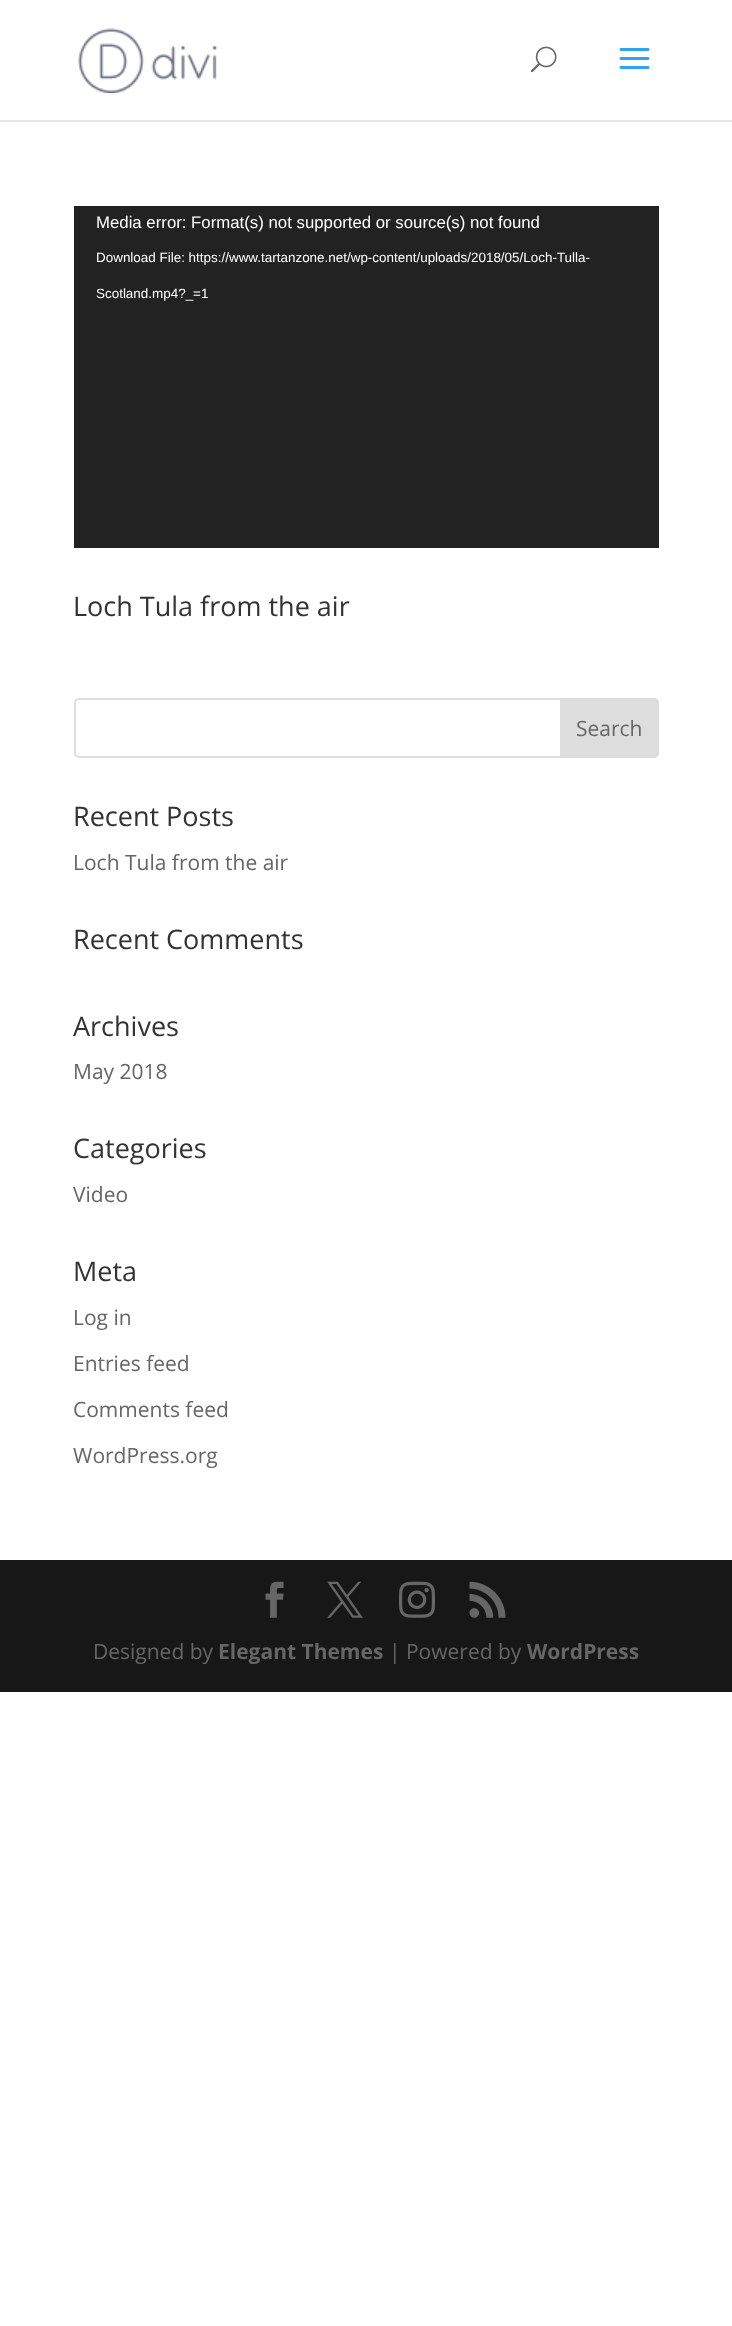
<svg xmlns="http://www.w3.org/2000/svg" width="732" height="2326">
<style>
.a{font:16.8px Liberation Sans;fill:#fff}
.b{font:13.45px Liberation Sans;fill:#fff}
.c{font:27px Open Sans;fill:#333}
.d{font:21px Open Sans;fill:#666}
.e{font:bold 21px Open Sans;fill:#666}
</style>
<rect width="100%" height="100%" fill="#fff"/>
<path fill="#e6e6e6" d="M0 120h732v2H0z"/>
<image href="1.png" x="78" y="28" width="140" height="65"/>
<image href="2.png" x="530" y="46" width="27" height="27"/>
<image href="3.png" x="619" y="48" width="31" height="21"/>
<path fill="#222" d="M74 206h585v342H74z"/>
<rect fill="none" stroke="#ddd" stroke-width="2" x="75" y="699" width="583" height="58" rx="4"/>
<path fill="#ddd" stroke="#ddd" stroke-width="2" d="M561 699h93c2 0 4 2 4 4v50c0 2-2 4-4 4h-93z"/>
<path fill="#171717" d="M0 1560h732v132H0z"/>
<image href="4.png" x="265" y="1581" width="19" height="37"/>
<image href="5.png" x="327" y="1581" width="36" height="37"/>
<image href="6.png" x="399" y="1581" width="36" height="37"/>
<image href="7.png" x="469" y="1581" width="37" height="37"/>
<text class="a" x="96" y="228">Media error: Format(s) not supported or source(s) not found</text>
<text class="b" x="96" y="262">Download File: https://www.tartanzone.net/wp-content/uploads/2018/05/Loch-Tulla-</text>
<text class="b" x="96" y="298">Scotland.mp4?_=1</text>
<text class="c" x="73" y="616">Loch Tula from the air</text>
<text class="d" x="576" y="736">Search</text>
<text class="c" x="73" y="826">Recent Posts</text>
<text class="d" x="73" y="870">Loch Tula from the air</text>
<text class="c" x="73" y="949">Recent Comments</text>
<text class="c" x="73" y="1036">Archives</text>
<text class="d" x="73" y="1079">May 2018</text>
<text class="c" x="73" y="1158">Categories</text>
<text class="d" x="73" y="1202">Video</text>
<text class="c" x="73" y="1281">Meta</text>
<text class="d" x="73" y="1325">Log in</text>
<text class="d" x="73" y="1371">Entries feed</text>
<text class="d" x="73" y="1417">Comments feed</text>
<text class="d" x="73" y="1463">WordPress.org</text>
<text class="d" x="93" y="1659">Designed by</text>
<text class="e" x="218" y="1659">Elegant Themes</text>
<text class="d" x="389" y="1659">| Powered by</text>
<text class="e" x="527" y="1659">WordPress</text>
</svg>
